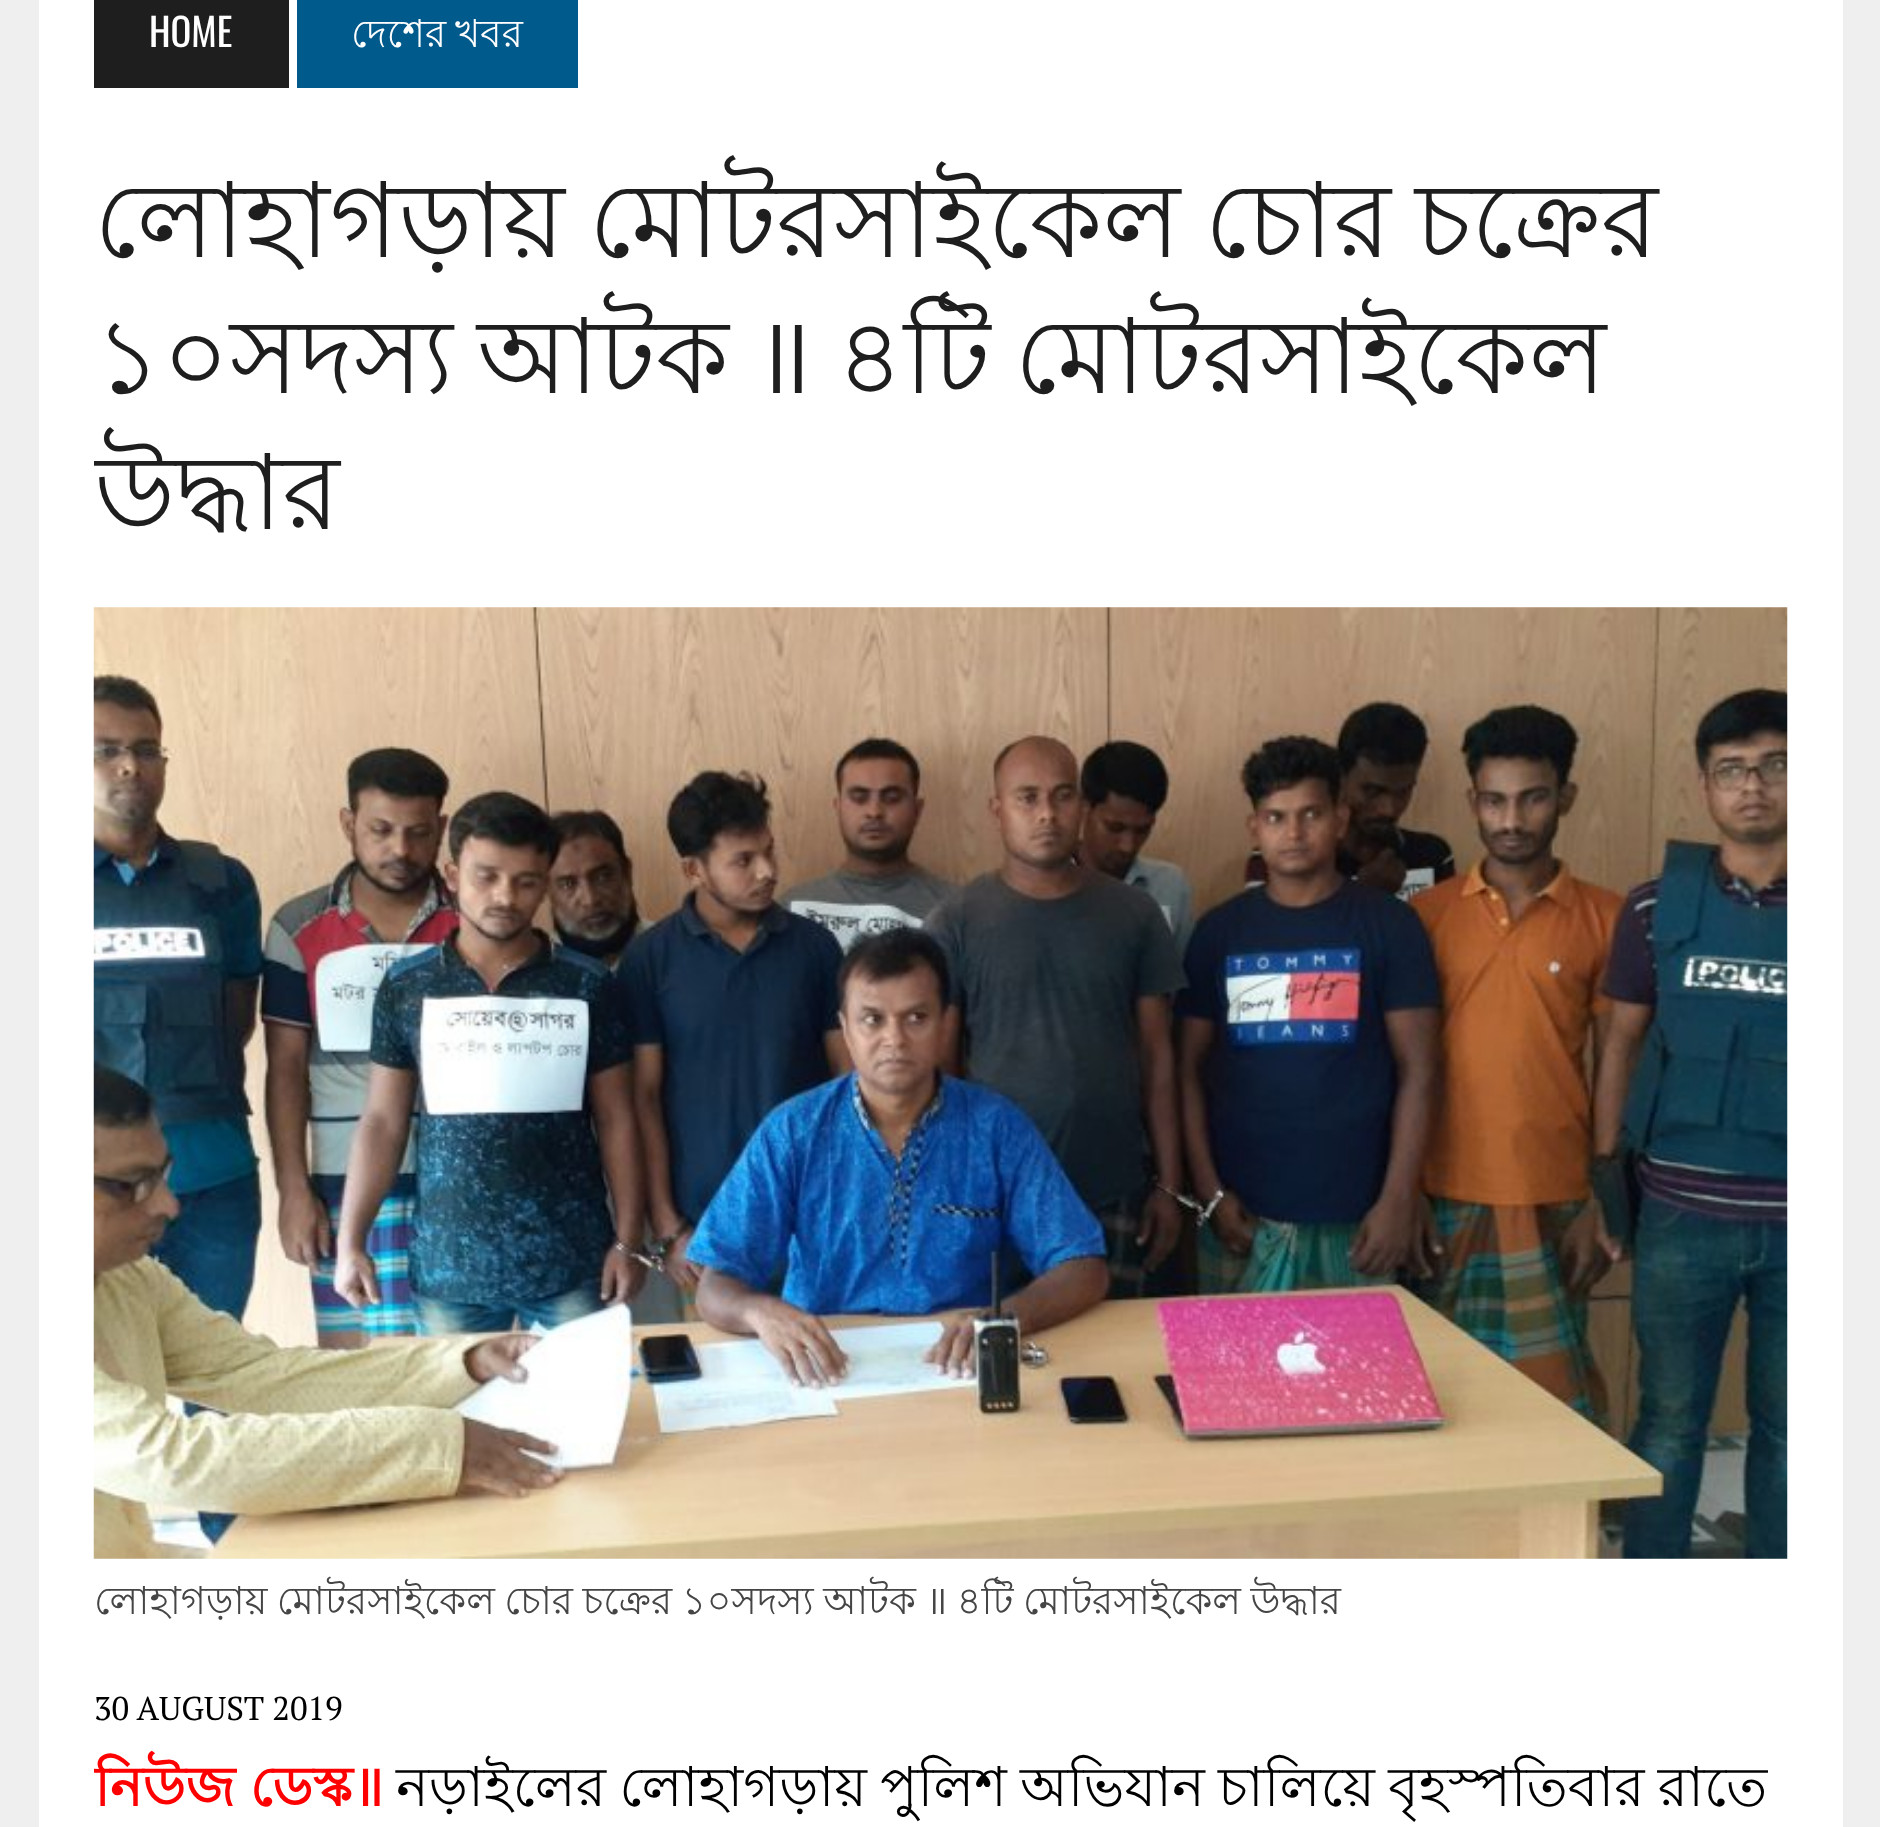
<svg xmlns="http://www.w3.org/2000/svg" width="1880" height="1827">
<style>
.a{font:38.5px Oswald;fill:#fff}
.b{font:38.5px Lohit Bengali;fill:#fff}
.c{font:104.5px Lohit Bengali;fill:#1f1e1e}
.d{font:38.5px Lohit Bengali;fill:#454545}
.e{font:33px PT Serif;fill:#000}
.f{font:bold 55px Lohit Bengali;fill:#f00}
.g{font:55px Lohit Bengali;fill:#000}
</style>
<defs>
<clipPath id="clip1"><path d="M94 0h1694v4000H94z"/></clipPath>
</defs>
<rect width="100%" height="100%" fill="#efefef"/>
<path fill="#fff" d="M39 0h1804v1827H39z"/>
<path fill="#1f1e1e" d="M94 0h195v88H94z"/>
<path fill="#005a8c" d="M297 0h281v88H297z"/>
<image href="1.png" x="93" y="607" width="1695" height="952"/>
<text class="a" x="149" y="47">HOME</text>
<text class="b" x="351" y="47" word-spacing="-2">দেশের খবর</text>
<g clip-path="url(#clip1)">
<text class="c" x="94" y="257" word-spacing="-5">লোহাগড়ায় মোটরসাইকেল চোর চক্রের</text>
</g>
<text class="c" x="94" y="393" word-spacing="-5">১০সদস্য আটক ॥ ৪টি মোটরসাইকেল</text>
<g clip-path="url(#clip1)">
<text class="c" x="94" y="529">উদ্ধার</text>
</g>
<text class="d" x="94" y="1614" word-spacing="-1.25">লোহাগড়ায় মোটরসাইকেল চোর চক্রের ১০সদস্য আটক ॥ ৪টি মোটরসাইকেল উদ্ধার</text>
<text class="e" x="94" y="1720">30 AUGUST 2019</text>
<g clip-path="url(#clip1)">
<text class="f" x="94" y="1806">নিউজ ডেস্ক॥</text>
</g>
<text class="g" x="396" y="1806" word-spacing="-2">নড়াইলের লোহাগড়ায় পুলিশ অভিযান চালিয়ে বৃহস্পতিবার রাতে</text>
</svg>
